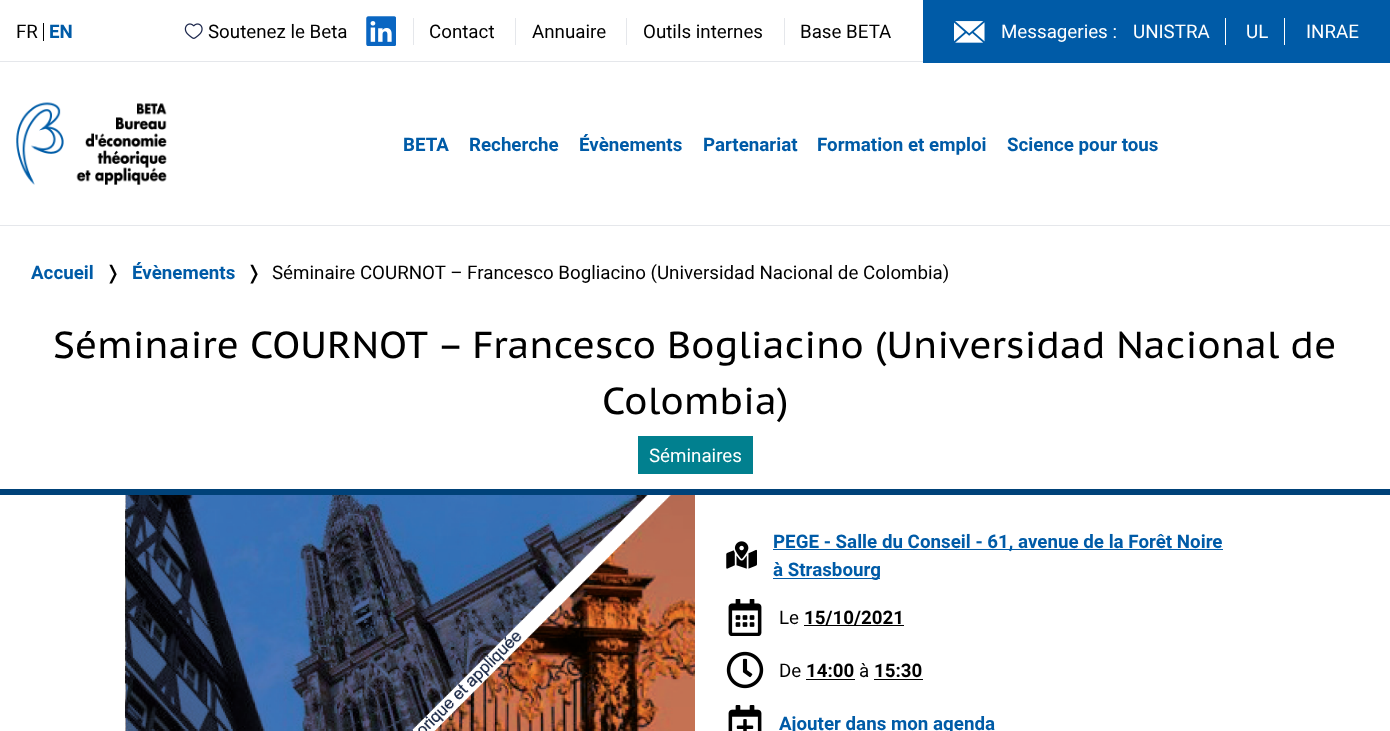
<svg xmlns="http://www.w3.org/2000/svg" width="1390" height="731">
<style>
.a{font:18.75px Roboto;fill:#000}
.b{font:bold 18.75px Roboto;fill:#005ba7}
.c{font:18.75px Roboto;fill:#fff}
.d{font:18.75px DejaVu Sans;fill:#000}
.e{font:37.5px PT Sans Caption;fill:#000}
.f{font:bold 18.75px Roboto;fill:#000}
</style>
<rect width="100%" height="100%" fill="#fff"/>
<path fill="#e5e7eb" d="M0 225h1390v1H0z"/>
<path fill="#e5e7eb" d="M0 61h923v1H0z"/>
<path fill="#000" d="M43 23h1v18H43z"/>
<image href="1.png" x="184" y="23" width="19" height="16"/>
<image href="2.png" x="366" y="16" width="30" height="30"/>
<path fill="#e5e7eb" d="M413 18h1v27H413z"/>
<path fill="#e5e7eb" d="M515 18h1v27H515z"/>
<path fill="#e5e7eb" d="M626 18h1v27H626z"/>
<path fill="#e5e7eb" d="M784 18h1v27H784z"/>
<path fill="#005ba7" d="M923 0h467v63H923z"/>
<image href="3.png" x="954" y="21" width="31" height="22"/>
<path fill="#fff" d="M1225 18h1v27H1225z"/>
<path fill="#fff" d="M1284 18h1v27H1284z"/>
<image href="4.png" x="16" y="102" width="151" height="83"/>
<path fill="#004279" d="M0 489h1390v6H0z"/>
<path fill="#01808f" d="M638 436h115v38H638z"/>
<image href="5.png" x="125" y="495" width="570" height="236"/>
<image href="6.png" x="726" y="541" width="31" height="28"/>
<path fill="#005ba7" d="M773 549h450v1H773z"/>
<path fill="#005ba7" d="M773 578h107v1H773z"/>
<image href="7.png" x="728" y="599" width="34" height="37"/>
<path fill="#000" d="M804 625h100v1H804z"/>
<image href="8.png" x="726" y="651" width="38" height="38"/>
<path fill="#000" d="M806 679h49v1H806z"/>
<path fill="#000" d="M874 679h49v1H874z"/>
<image href="9.png" x="728" y="705" width="34" height="26"/>
<text class="a" x="16" y="38">FR</text>
<text class="b" x="49" y="38">EN</text>
<text class="a" x="208" y="38">Soutenez le Beta</text>
<text class="a" x="429" y="38">Contact</text>
<text class="a" x="532" y="38">Annuaire</text>
<text class="a" x="643" y="38">Outils internes</text>
<text class="a" x="800" y="38">Base BETA</text>
<text class="c" x="1001" y="38">Messageries :</text>
<text class="c" x="1133" y="38">UNISTRA</text>
<text class="c" x="1246" y="38">UL</text>
<text class="c" x="1306" y="38">INRAE</text>
<text class="b" x="403" y="151">BETA</text>
<text class="b" x="469" y="151">Recherche</text>
<text class="b" x="579" y="151">Évènements</text>
<text class="b" x="703" y="151">Partenariat</text>
<text class="b" x="817" y="151">Formation et emploi</text>
<text class="b" x="1007" y="151">Science pour tous</text>
<text class="b" x="31" y="279">Accueil</text>
<text class="d" x="105" y="279">❭</text>
<text class="b" x="132" y="279">Évènements</text>
<text class="d" x="246" y="279">❭</text>
<text class="a" x="272" y="279">Séminaire COURNOT – Francesco Bogliacino (Universidad Nacional de Colombia)</text>
<text class="e" x="53" y="358">Séminaire COURNOT – Francesco Bogliacino (Universidad Nacional de</text>
<text class="e" x="602" y="414">Colombia)</text>
<text class="c" x="649" y="462">Séminaires</text>
<text class="b" x="773" y="548">PEGE - Salle du Conseil - 61, avenue de la Forêt Noire</text>
<text class="b" x="773" y="576">à Strasbourg</text>
<text class="a" x="779" y="624">Le</text>
<text class="f" x="804" y="624">15/10/2021</text>
<text class="a" x="779" y="677">De</text>
<text class="f" x="806" y="677">14:00</text>
<text class="a" x="859" y="677">à</text>
<text class="f" x="874" y="677">15:30</text>
<text class="b" x="779" y="730">Ajouter dans mon agenda</text>
</svg>
